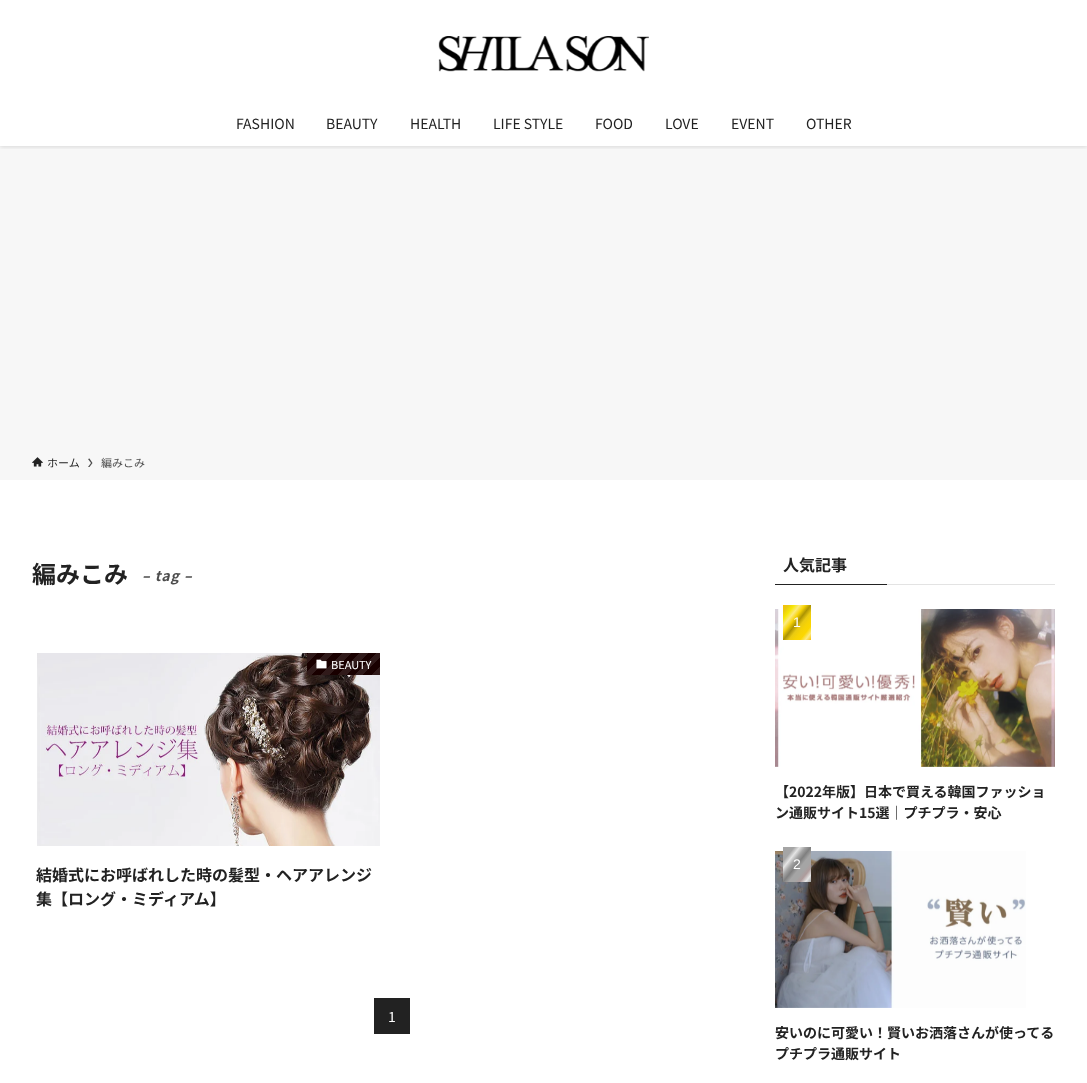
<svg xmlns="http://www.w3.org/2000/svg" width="1087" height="1083">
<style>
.a{font:14px Noto Sans JP;fill:#222}
.b{font:11px Noto Sans JP;fill:#222}
.c{font:11px Noto Sans JP;fill:#4d4d4d}
.d{font:bold 24px Noto Sans JP;fill:#222}
.e{font:italic bold 14px Noto Sans JP;letter-spacing:1px;fill:#4d4d4d}
.f{font:11px Noto Sans JP;fill:#fff}
.g{font:bold 16px Noto Sans JP;fill:#222}
.h{font:14px Noto Sans JP;fill:#fff}
.i{font:14px Liberation Sans;fill:#fff}
.j{font:bold 14px Noto Sans JP;fill:#222}
</style>
<defs>
<clipPath id="clip1"><path d="M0 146h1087v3H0z"/></clipPath>
<linearGradient id="g1" gradientUnits="userSpaceOnUse" x1="367" y1="688" x2="316" y2="637"><stop offset="0" stop-color="#301a1a"/><stop offset="0.08" stop-color="#301a1a"/><stop offset="0.08" stop-color="#190000"/><stop offset="0.17" stop-color="#190000"/><stop offset="0.17" stop-color="#301a1a"/><stop offset="0.25" stop-color="#301a1a"/><stop offset="0.25" stop-color="#190000"/><stop offset="0.33" stop-color="#190000"/><stop offset="0.33" stop-color="#301a1a"/><stop offset="0.42" stop-color="#301a1a"/><stop offset="0.42" stop-color="#190000"/><stop offset="0.5" stop-color="#190000"/><stop offset="0.5" stop-color="#301a1a"/><stop offset="0.58" stop-color="#301a1a"/><stop offset="0.58" stop-color="#190000"/><stop offset="0.67" stop-color="#190000"/><stop offset="0.67" stop-color="#301a1a"/><stop offset="0.75" stop-color="#301a1a"/><stop offset="0.75" stop-color="#190000"/><stop offset="0.83" stop-color="#190000"/><stop offset="0.83" stop-color="#301a1a"/><stop offset="0.92" stop-color="#301a1a"/><stop offset="0.92" stop-color="#190000"/><stop offset="1" stop-color="#190000"/></linearGradient>
<linearGradient id="g2" gradientUnits="userSpaceOnUse" x1="814" y1="636" x2="780" y2="609"><stop offset="0" stop-color="#f7bf05"/><stop offset="0.1" stop-color="#fcea7f"/><stop offset="0.2" stop-color="#fcd700"/><stop offset="0.3" stop-color="#f7d305"/><stop offset="0.4" stop-color="#eaca12"/><stop offset="0.5" stop-color="#ac9303"/><stop offset="0.6" stop-color="#f7d305"/><stop offset="0.7" stop-color="#fcea7f"/><stop offset="0.8" stop-color="#f7e705"/><stop offset="0.9" stop-color="#eaca12"/><stop offset="1" stop-color="#f7bf05"/></linearGradient>
<linearGradient id="g3" gradientUnits="userSpaceOnUse" x1="814" y1="878" x2="780" y2="851"><stop offset="0" stop-color="#a5a5a5"/><stop offset="0.1" stop-color="#e5e5e5"/><stop offset="0.2" stop-color="#ae9c9c"/><stop offset="0.3" stop-color="#a5a5a5"/><stop offset="0.4" stop-color="#a5a5a5"/><stop offset="0.5" stop-color="#7f7f7f"/><stop offset="0.6" stop-color="#a5a5a5"/><stop offset="0.7" stop-color="#e5e5e5"/><stop offset="0.8" stop-color="#a5a5a5"/><stop offset="1" stop-color="#a5a5a5"/></linearGradient>
</defs>
<rect width="100%" height="100%" fill="#fff"/>
<path fill="#f7f7f7" d="M0 146h1087v334H0z"/>
<g clip-path="url(#clip1)">
<path fill="#0000001f" filter="blur(2px)" d="M0 1h1087v146H0z"/>
</g>
<image href="1.png" x="438" y="36" width="211" height="36"/>
<image href="2.png" x="32" y="457" width="11" height="10"/>
<path fill="#4d4d4d" d="M89.5 458.5l-1.5 .5l3 4l-3 4h1.5l3-4z"/>
<image href="3.png" x="37" y="653" width="343" height="193"/>
<path fill="url(#g1)" d="M307 653h73v22H307z"/>
<image href="4.png" x="316" y="659" width="11" height="10"/>
<path fill="#222" d="M374 998h36v36H374z"/>
<path fill="#222" d="M775 584h112v1H775z"/>
<path fill="#e3e3e3" d="M887 584h168v1H887z"/>
<image href="5.png" x="775" y="609" width="280" height="158"/>
<path fill="url(#g2)" d="M783 605h28v35H783z"/>
<image href="6.png" x="775" y="851" width="251" height="157"/>
<path fill="url(#g3)" d="M783 847h28v35H783z"/>
<text class="a" x="236" y="129">FASHION</text>
<text class="a" x="326" y="129">BEAUTY</text>
<text class="a" x="410" y="129">HEALTH</text>
<text class="a" x="493" y="129">LIFE STYLE</text>
<text class="a" x="595" y="129">FOOD</text>
<text class="a" x="665" y="129">LOVE</text>
<text class="a" x="731" y="129">EVENT</text>
<text class="a" x="806" y="129">OTHER</text>
<text class="b" x="47" y="467">ホーム</text>
<text class="c" x="101" y="467">編みこみ</text>
<text class="d" x="32" y="583">編みこみ</text>
<text class="e" x="142" y="581">– tag –</text>
<text class="f" x="331" y="669">BEAUTY</text>
<text class="g" x="36" y="881">結婚式にお呼ばれした時の髪型・ヘアアレンジ</text>
<text class="g" x="36" y="905">集【ロング・ミディアム】</text>
<text class="h" x="388" y="1022">1</text>
<text class="g" x="783" y="571">人気記事</text>
<text class="i" x="793" y="627">1</text>
<text class="j" x="775" y="797">【2022年版】日本で買える韓国ファッショ</text>
<text class="j" x="775" y="818">ン通販サイト15選｜プチプラ・安心</text>
<text class="i" x="793" y="869">2</text>
<text class="j" x="775" y="1038">安いのに可愛い！賢いお洒落さんが使ってる</text>
<text class="j" x="775" y="1059">プチプラ通販サイト</text>
</svg>
